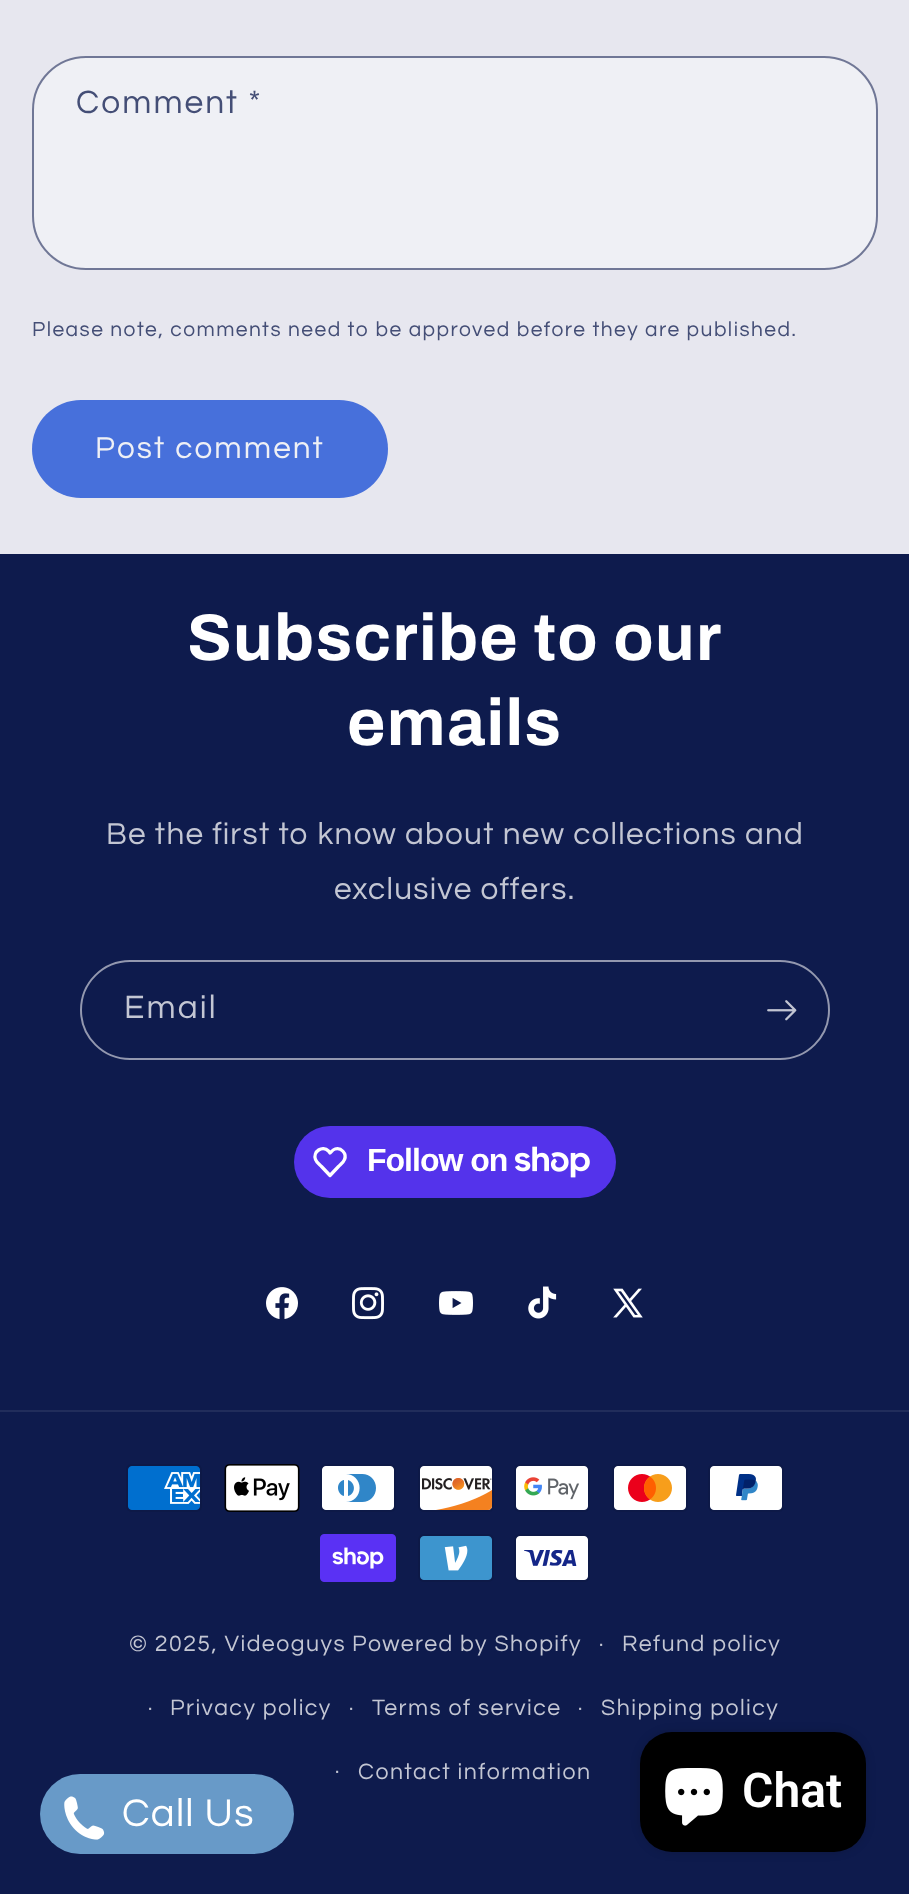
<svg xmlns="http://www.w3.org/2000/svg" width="909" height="1894">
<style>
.a{font:33.5px Questrial;letter-spacing:2.1px;fill:#444e76}
.b{font:21px Questrial;letter-spacing:1.47px;fill:#444e76}
.c{font:31.5px Questrial;letter-spacing:2.1px;fill:#eff0f5}
.d{font:bold 66px Archivo;letter-spacing:1.3px;fill:#fff}
.e{font:31.5px Questrial;letter-spacing:1.25px;fill:#c3c6d3}
.f{font:33.5px Questrial;letter-spacing:2.1px;fill:#c3c6d3}
.g{font:bold 32px Liberation Sans;letter-spacing:-1px;fill:#fff}
.h{font:23.1px Questrial;letter-spacing:1.47px;fill:#c3c6d3}
.i{font:21px Questrial;letter-spacing:1.47px;fill:#c3c6d3}
.j{font:600 48px Roboto;fill:#fff}
.k{font:40px Questrial;letter-spacing:1.25px;fill:#fff}
</style>
<rect width="100%" height="100%" fill="#e7e7ef"/>
<rect fill="#eff0f5" x="34" y="58" width="842" height="210" rx="52"/>
<rect fill="none" stroke="#0e1b4d8c" stroke-width="2" x="33" y="57" width="844" height="212" rx="53"/>
<rect fill="#4770db" x="32" y="400" width="356" height="98" rx="49"/>
<path fill="#0e1b4d" d="M0 554h909v1340H0z"/>
<rect fill="none" stroke="#9398af" stroke-width="2" x="81" y="961" width="748" height="98" rx="49"/>
<image href="1.png" x="767" y="1000" width="30" height="21"/>
<rect fill="#5433eb" x="294" y="1126" width="322" height="72" rx="36"/>
<path fill="none" stroke="#fff" stroke-width="3.3" stroke-linejoin="round" d="M328.5 1151l1.5 2c1.5-1.5 3-3.5 5-4c6-2 12 4.5 9.5 10.5c-1 3-4 5-6 7l-8.5 9l-8.5-9c-2-2-5-4-6-7c-3-8 7-14.5 13-8.5z"/>
<image href="2.png" x="515" y="1146" width="75" height="32"/>
<image href="3.png" x="266" y="1287" width="32" height="32"/>
<image href="4.png" x="352" y="1287" width="32" height="33"/>
<image href="5.png" x="439" y="1291" width="34" height="24"/>
<image href="6.png" x="528" y="1286" width="29" height="33"/>
<image href="7.png" x="613" y="1288" width="30" height="30"/>
<path fill="#212d5b" d="M0 1410h909v2H0z"/>
<image href="8.png" x="126" y="1464" width="76" height="48"/>
<image href="9.png" x="224" y="1464" width="76" height="48"/>
<image href="10.png" x="320" y="1464" width="76" height="48"/>
<image href="11.png" x="418" y="1464" width="76" height="48"/>
<image href="12.png" x="514" y="1464" width="76" height="48"/>
<image href="13.png" x="612" y="1464" width="76" height="48"/>
<image href="14.png" x="708" y="1464" width="76" height="48"/>
<image href="15.png" x="320" y="1534" width="76" height="48"/>
<image href="16.png" x="418" y="1534" width="76" height="48"/>
<image href="17.png" x="514" y="1534" width="76" height="48"/>
<rect fill="#00000026" filter="blur(5px)" x="640" y="1732" width="226" height="120" rx="32"/>
<rect fill="#000" x="640" y="1732" width="226" height="120" rx="32"/>
<image href="18.png" x="665" y="1768" width="58" height="58"/>
<rect fill="#689ac8" x="40" y="1774" width="254" height="80" rx="40"/>
<image href="19.png" x="64" y="1796" width="41" height="44"/>
<text class="a" x="76" y="113">Comment *</text>
<text class="b" x="32" y="336">Please note, comments need to be approved before they are published.</text>
<text class="c" x="95" y="458">Post comment</text>
<text class="d" x="187" y="660">Subscribe to our</text>
<text class="d" x="347" y="745">emails</text>
<text class="e" x="106" y="844">Be the first to know about new collections and</text>
<text class="e" x="334" y="899">exclusive offers.</text>
<text class="f" x="124" y="1018">Email</text>
<text class="g" x="367" y="1171">Follow on</text>
<text class="h" x="129" y="1651">© 2025, Videoguys</text>
<text class="i" x="599" y="1651">·</text>
<text class="h" x="622" y="1651">Refund policy</text>
<text class="i" x="148" y="1715">·</text>
<text class="h" x="170" y="1715">Privacy policy</text>
<text class="i" x="349" y="1715">·</text>
<text class="h" x="372" y="1715">Terms of service</text>
<text class="i" x="578" y="1715">·</text>
<text class="h" x="601" y="1715">Shipping policy</text>
<text class="i" x="335" y="1778">·</text>
<text class="h" x="358" y="1779">Contact information</text>
<text class="h" x="352" y="1651">Powered by Shopify</text>
<text class="j" x="742" y="1807">Chat</text>
<text class="k" x="122" y="1826">Call Us</text>
</svg>
